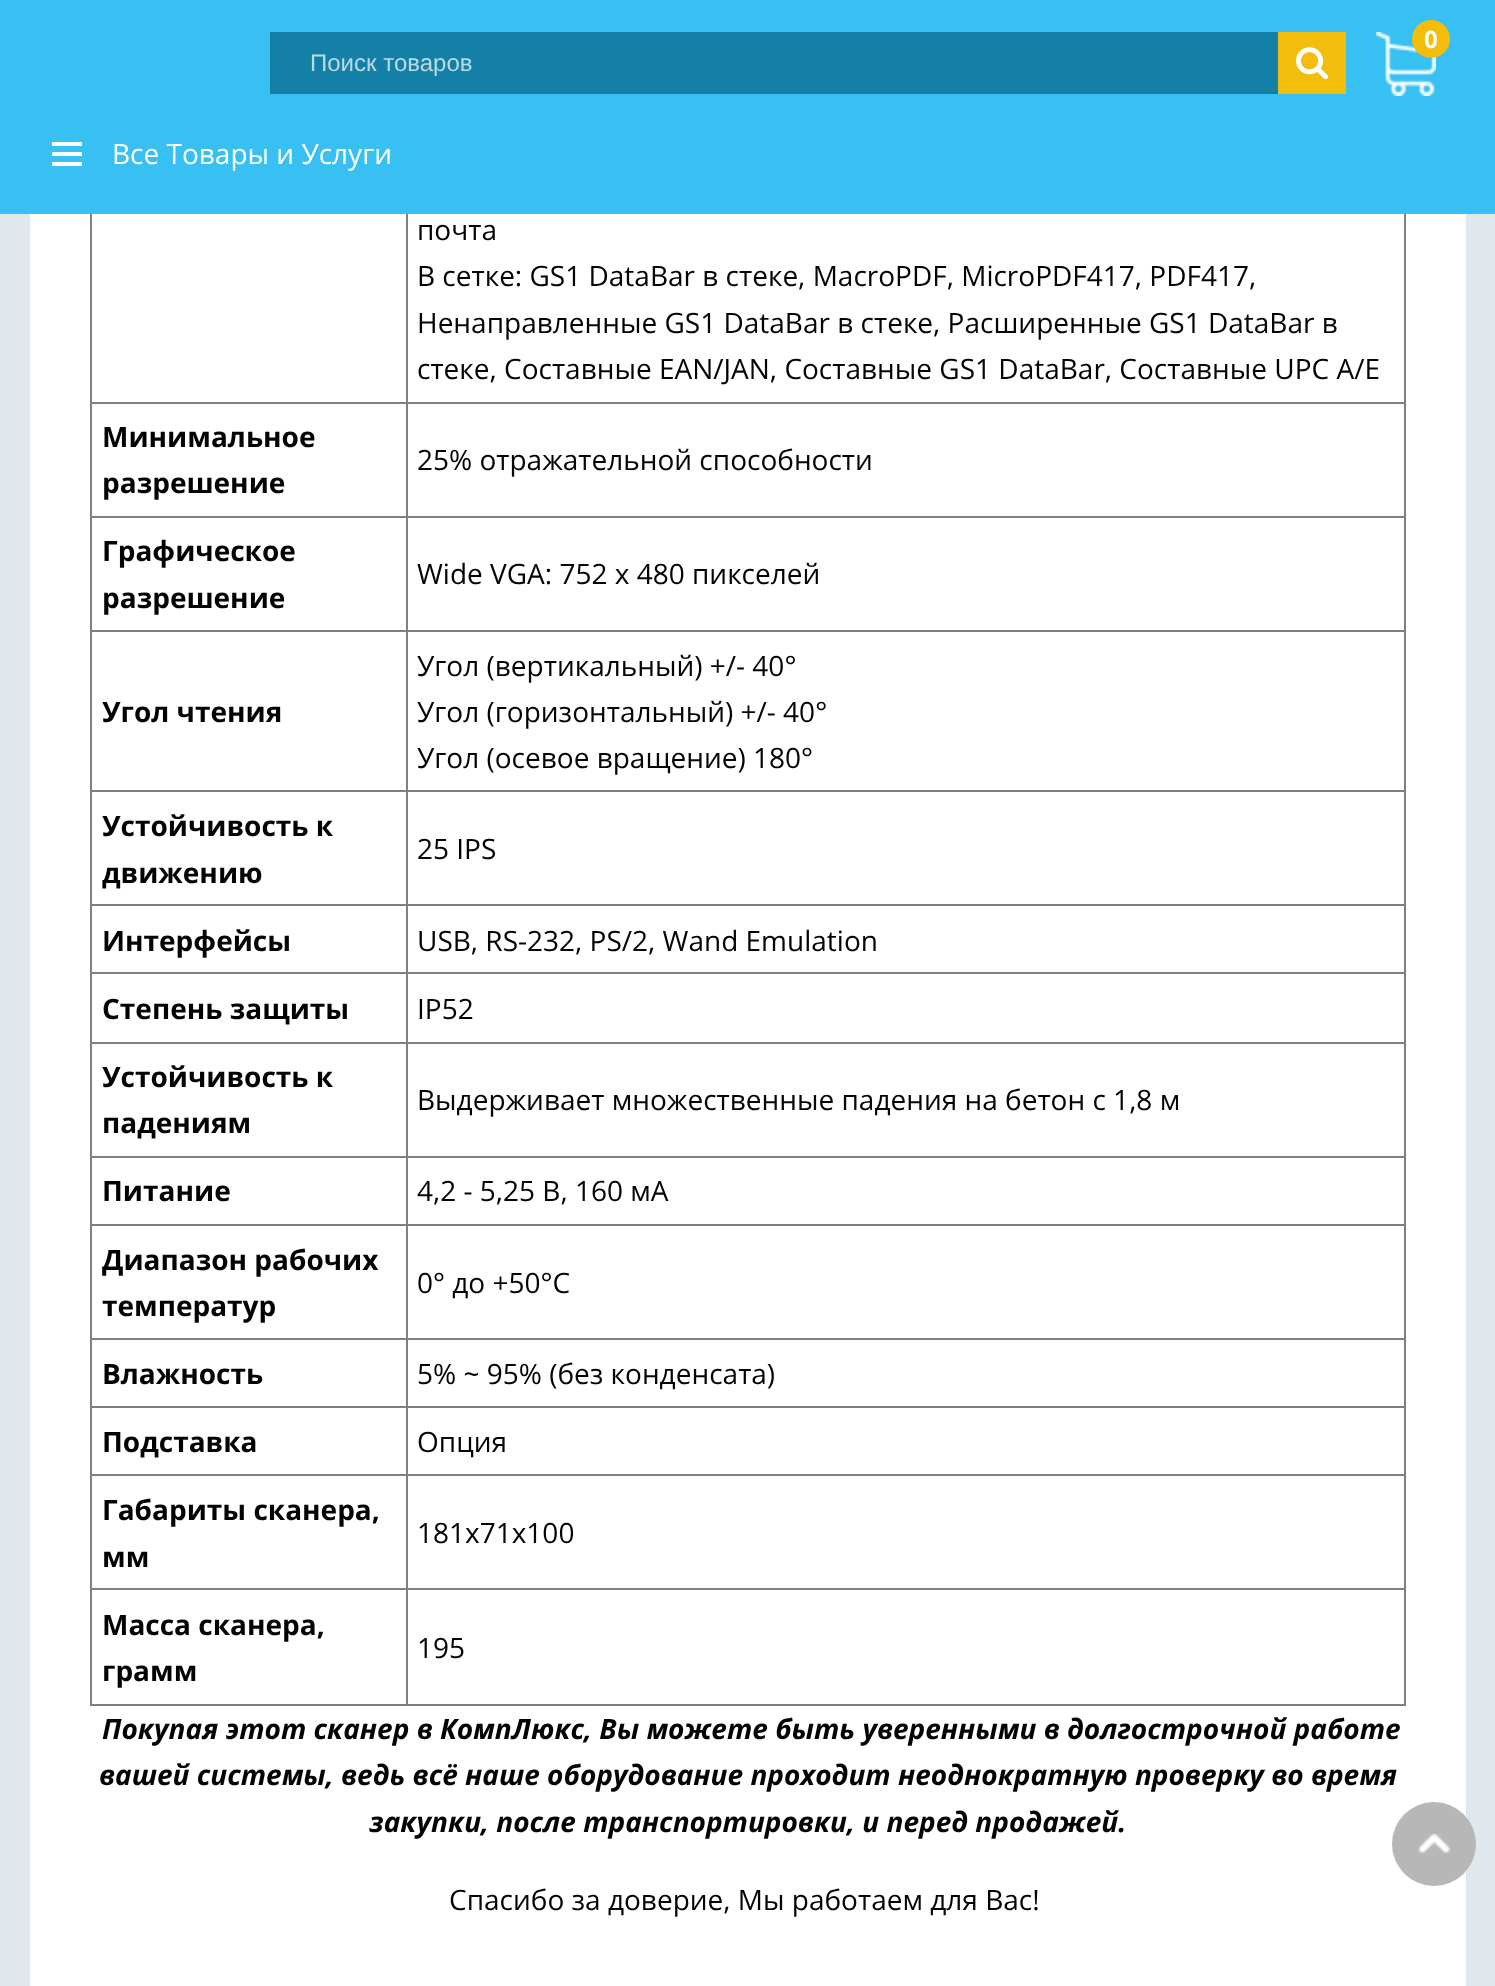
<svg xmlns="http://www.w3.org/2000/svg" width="1495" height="1986">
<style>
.a{font:bold 24px Open Sans;fill:#fff}
.b{font:24px Liberation Sans;fill:#b9d9e5}
.c{font:28px Open Sans;fill:#fff}
.d{font:28px Open Sans;fill:#030303}
.e{font:bold 28px Open Sans;fill:#030303}
.f{font:italic bold 28px Open Sans;fill:#030303}
</style>
<rect width="100%" height="100%" fill="#e1e8ed"/>
<path fill="#38c0f3" d="M0 0h1495v214H0z"/>
<image href="1.png" x="1376" y="32" width="60" height="64"/>
<circle fill="#f2bd0b" cx="1431" cy="39" r="19"/>
<path fill="#1480a8" d="M270 32h1008v62H270z"/>
<path fill="#f2bd0b" d="M1278 32h68v62H1278z"/>
<image href="2.png" x="1296" y="47" width="32" height="33"/>
<path fill="#fff" d="M52 142h30v4H52z"/>
<path fill="#fff" d="M52 152h30v4H52z"/>
<path fill="#fff" d="M52 162h30v4H52z"/>
<path fill="#fff" d="M30 214h1436v1772H30z"/>
<path fill="#808080" d="M1404 214h2v1492H1404z"/>
<path fill="#808080" d="M90 1704h1316v2H90z"/>
<path fill="#808080" d="M90 214h2v1492H90z"/>
<path fill="#808080" d="M406 402h1000v2H406z"/>
<path fill="#808080" d="M406 516h1000v2H406z"/>
<path fill="#808080" d="M406 630h1000v2H406z"/>
<path fill="#808080" d="M406 790h1000v2H406z"/>
<path fill="#808080" d="M406 904h1000v2H406z"/>
<path fill="#808080" d="M406 972h1000v2H406z"/>
<path fill="#808080" d="M406 1042h1000v2H406z"/>
<path fill="#808080" d="M406 1156h1000v2H406z"/>
<path fill="#808080" d="M406 1224h1000v2H406z"/>
<path fill="#808080" d="M406 1338h1000v2H406z"/>
<path fill="#808080" d="M406 1406h1000v2H406z"/>
<path fill="#808080" d="M406 1474h1000v2H406z"/>
<path fill="#808080" d="M406 1588h1000v2H406z"/>
<path fill="#808080" d="M406 1588h2v118H406z"/>
<path fill="#808080" d="M90 1588h318v2H90z"/>
<path fill="#808080" d="M406 1474h2v116H406z"/>
<path fill="#808080" d="M90 1474h318v2H90z"/>
<path fill="#808080" d="M406 1406h2v70H406z"/>
<path fill="#808080" d="M90 1406h318v2H90z"/>
<path fill="#808080" d="M406 1338h2v70H406z"/>
<path fill="#808080" d="M90 1338h318v2H90z"/>
<path fill="#808080" d="M406 1224h2v116H406z"/>
<path fill="#808080" d="M90 1224h318v2H90z"/>
<path fill="#808080" d="M406 1156h2v70H406z"/>
<path fill="#808080" d="M90 1156h318v2H90z"/>
<path fill="#808080" d="M406 1042h2v116H406z"/>
<path fill="#808080" d="M90 1042h318v2H90z"/>
<path fill="#808080" d="M406 972h2v72H406z"/>
<path fill="#808080" d="M90 972h318v2H90z"/>
<path fill="#808080" d="M406 904h2v70H406z"/>
<path fill="#808080" d="M90 904h318v2H90z"/>
<path fill="#808080" d="M406 790h2v116H406z"/>
<path fill="#808080" d="M90 790h318v2H90z"/>
<path fill="#808080" d="M406 630h2v162H406z"/>
<path fill="#808080" d="M90 630h318v2H90z"/>
<path fill="#808080" d="M406 516h2v116H406z"/>
<path fill="#808080" d="M90 516h318v2H90z"/>
<path fill="#808080" d="M406 402h2v116H406z"/>
<path fill="#808080" d="M90 402h318v2H90z"/>
<path fill="#808080" d="M406 214h2v190H406z"/>
<circle fill="#b8b7b7" cx="1434" cy="1844" r="42"/>
<image href="3.png" x="1418" y="1834" width="32" height="20"/>
<text class="a" x="1424" y="48">0</text>
<text class="b" x="310" y="71">Поиск товаров</text>
<text class="c" x="112" y="164">Все Товары и Услуги</text>
<text class="d" x="417" y="240">почта</text>
<text class="d" x="417" y="286">В сетке: GS1 DataBar в стеке, MacroPDF, MicroPDF417, PDF417,</text>
<text class="d" x="417" y="333">Ненаправленные GS1 DataBar в стеке, Расширенные GS1 DataBar в</text>
<text class="d" x="417" y="379">стеке, Составные EAN/JAN, Составные GS1 DataBar, Составные UPC A/E</text>
<text class="e" x="102" y="447">Минимальное</text>
<text class="e" x="102" y="493">разрешение</text>
<text class="d" x="417" y="470">25% отражательной способности</text>
<text class="e" x="102" y="561">Графическое</text>
<text class="e" x="102" y="608">разрешение</text>
<text class="d" x="417" y="584">Wide VGA: 752 x 480 пикселей</text>
<text class="e" x="102" y="722">Угол чтения</text>
<text class="d" x="417" y="676">Угол (вертикальный) +/- 40°</text>
<text class="d" x="417" y="722">Угол (горизонтальный) +/- 40°</text>
<text class="d" x="417" y="768">Угол (осевое вращение) 180°</text>
<text class="e" x="102" y="836">Устойчивость к</text>
<text class="e" x="102" y="883">движению</text>
<text class="d" x="417" y="859">25 IPS</text>
<text class="e" x="102" y="951">Интерфейсы</text>
<text class="d" x="417" y="951">USB, RS-232, PS/2, Wand Emulation</text>
<text class="e" x="102" y="1019">Степень защиты</text>
<text class="d" x="417" y="1019">IP52</text>
<text class="e" x="102" y="1087">Устойчивость к</text>
<text class="e" x="102" y="1133">падениям</text>
<text class="d" x="417" y="1110">Выдерживает множественные падения на бетон с 1,8 м</text>
<text class="e" x="102" y="1201">Питание</text>
<text class="d" x="417" y="1201">4,2 - 5,25 В, 160 мА</text>
<text class="e" x="102" y="1270">Диапазон рабочих</text>
<text class="e" x="102" y="1316">температур</text>
<text class="d" x="417" y="1293">0° до +50°С</text>
<text class="e" x="102" y="1384">Влажность</text>
<text class="d" x="417" y="1384">5% ~ 95% (без конденсата)</text>
<text class="e" x="102" y="1452">Подставка</text>
<text class="d" x="417" y="1452">Опция</text>
<text class="e" x="102" y="1520">Габариты сканера,</text>
<text class="e" x="102" y="1567">мм</text>
<text class="d" x="417" y="1543">181x71x100</text>
<text class="e" x="102" y="1635">Масса сканера,</text>
<text class="e" x="102" y="1681">грамм</text>
<text class="d" x="417" y="1658">195</text>
<text class="f" x="102" y="1739">Покупая этот сканер в КомпЛюкс, Вы можете быть уверенными в долгострочной работе</text>
<text class="f" x="99" y="1785">вашей системы, ведь всё наше оборудование проходит неоднократную проверку во время</text>
<text class="f" x="369" y="1832">закупки, после транспортировки, и перед продажей.</text>
<text class="d" x="449" y="1910">Спасибо за доверие, Мы работаем для Вас!</text>
</svg>
